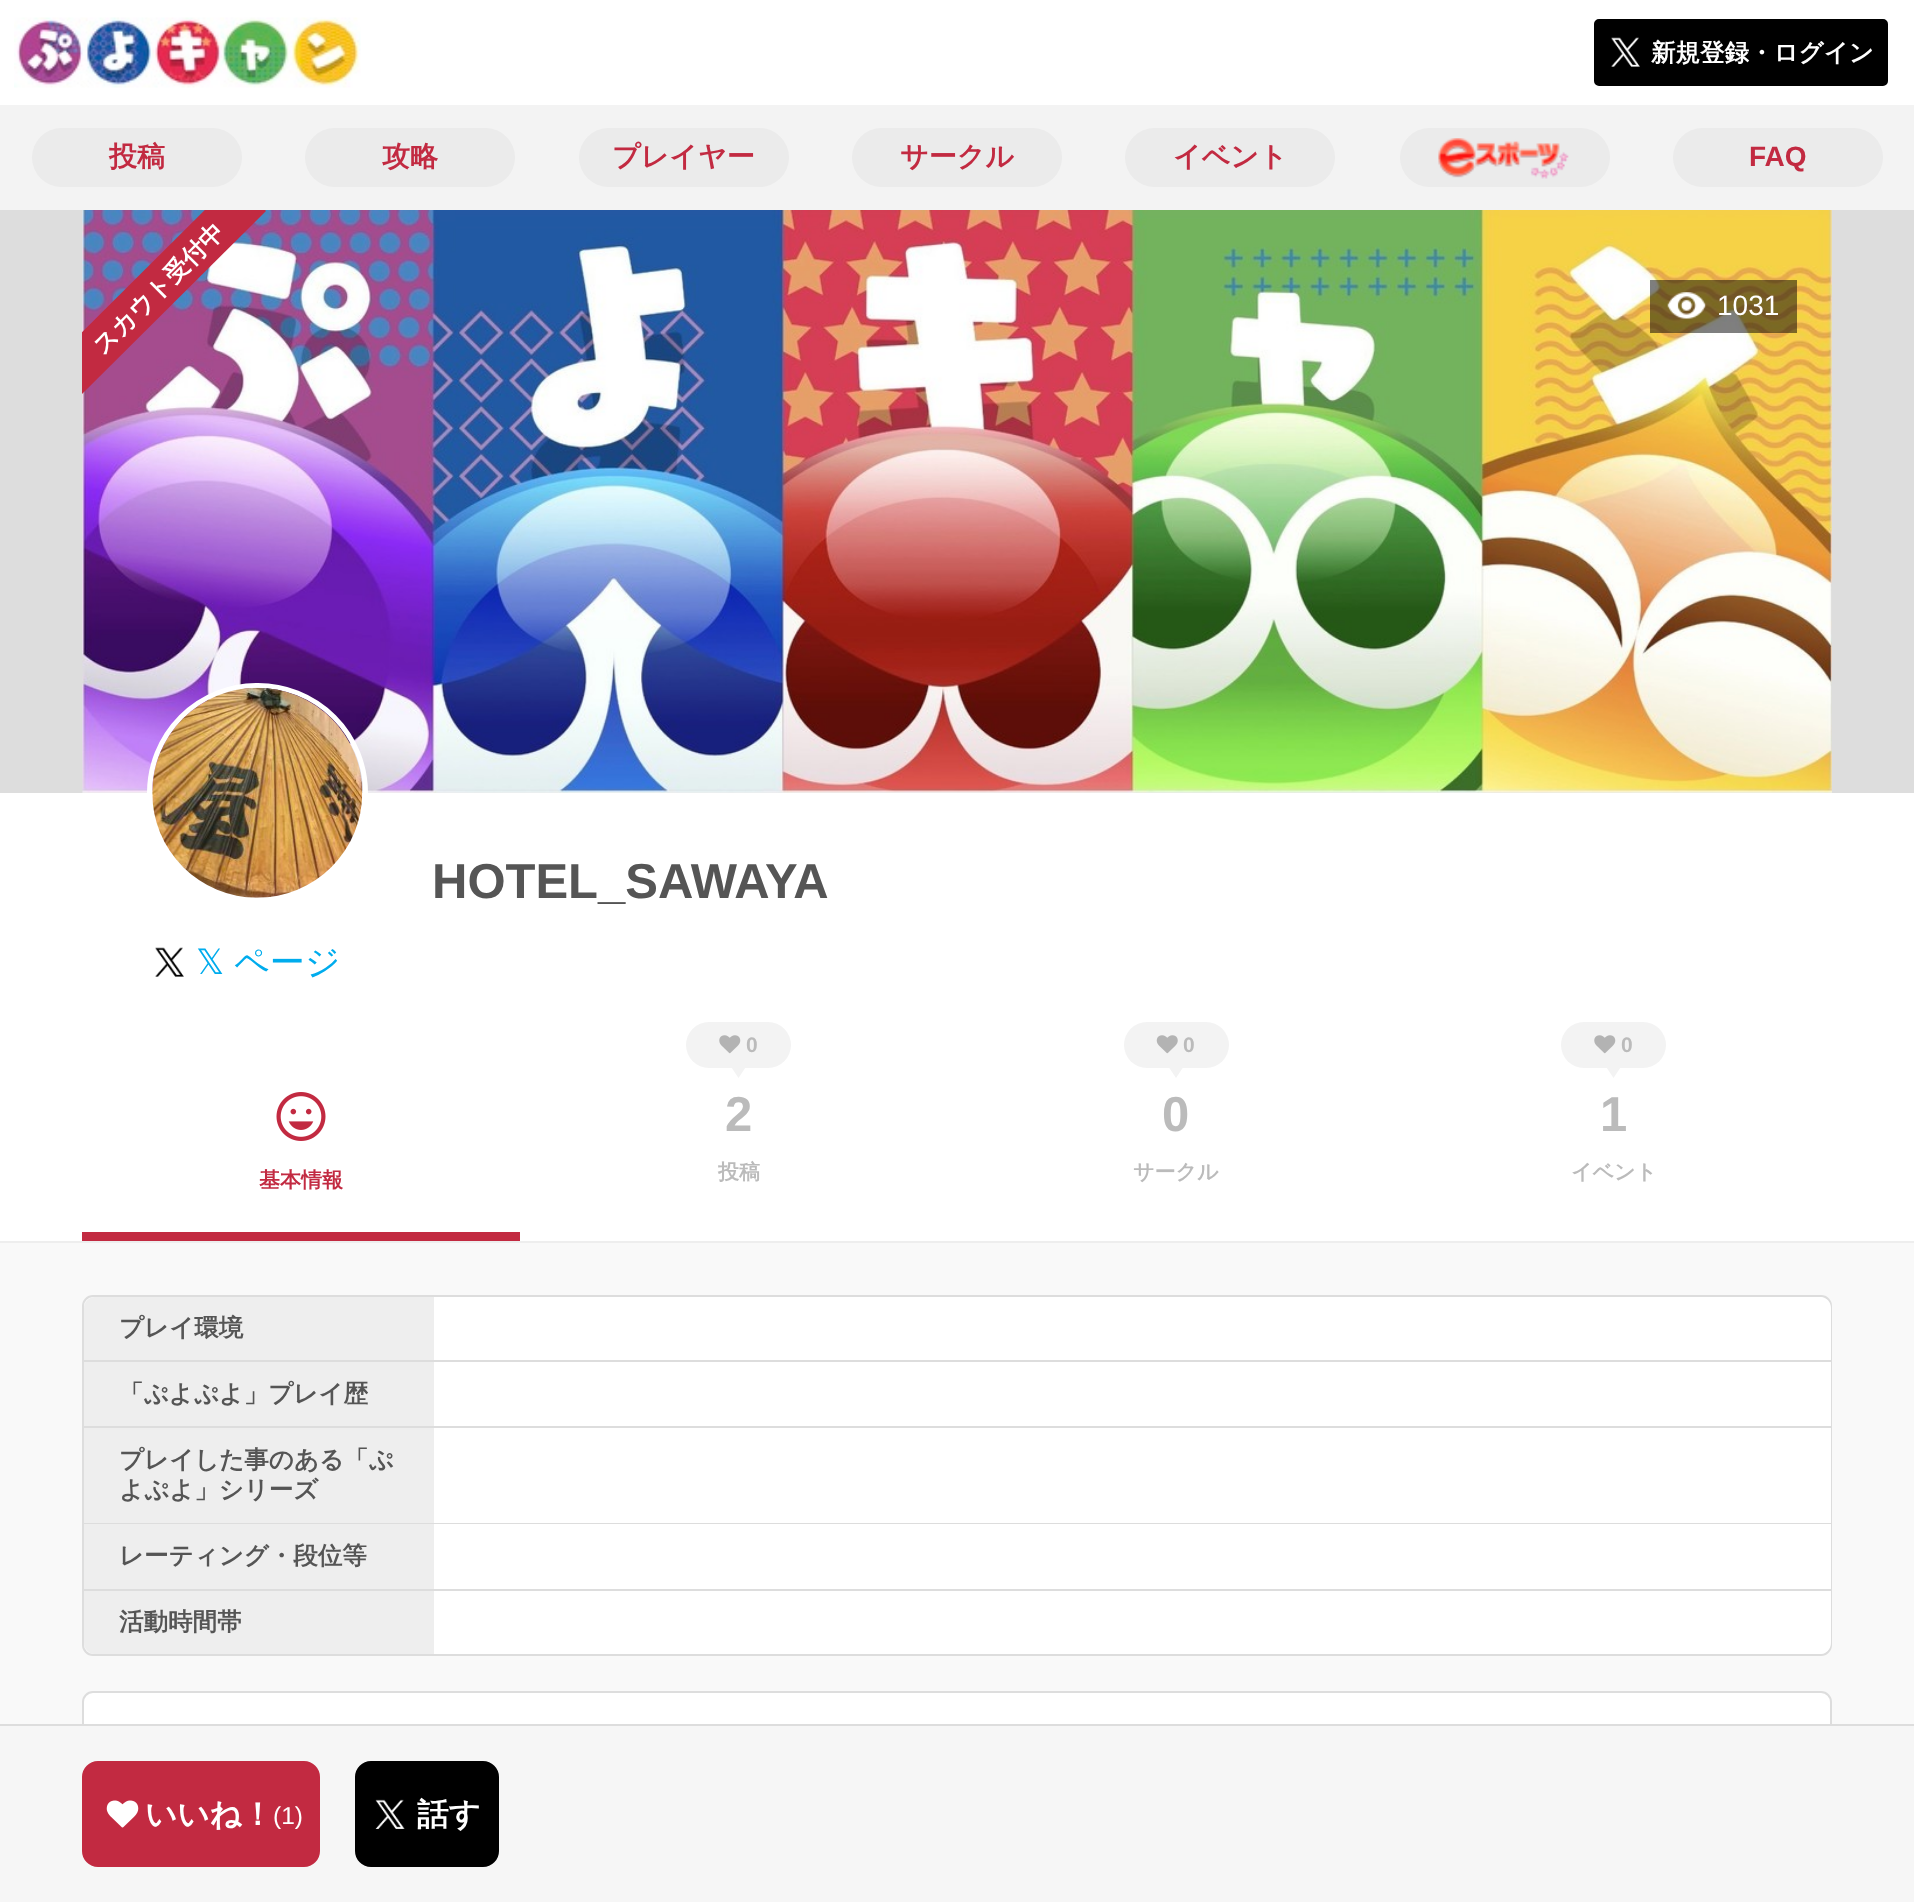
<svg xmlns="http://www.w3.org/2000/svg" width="1914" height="1902">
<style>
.a{font:bold 24.5px WenQuanYi Zen Hei;fill:#fff}
.b{font:bold 28px WenQuanYi Zen Hei;fill:#c22a41}
.c{font:bold 28px Liberation Sans;fill:#c22a41}
.d{font:28px Liberation Sans;fill:#fff}
.e{font:bold 49px Liberation Sans;fill:#555}
.f{font:35px DejaVu Sans;fill:#00aced}
.g{font:500 35px WenQuanYi Zen Hei;fill:#00aced}
.h{font:bold 21px WenQuanYi Zen Hei;fill:#c22a41}
.i{font:bold 21px Liberation Sans;fill:#bbb}
.j{font:bold 49px Liberation Sans;fill:#bbb}
.k{font:bold 21px WenQuanYi Zen Hei;fill:#bbb}
.l{font:bold 24.5px WenQuanYi Zen Hei;fill:#555}
.m{font:bold 31.5px WenQuanYi Zen Hei;fill:#fff}
.n{font:24.5px Liberation Sans;fill:#fff}
</style>
<defs>
<clipPath id="clip1"><path d="M82 210h1750v583H82z"/></clipPath>
</defs>
<rect width="100%" height="100%" fill="#f9f9f9"/>
<path fill="#fff" d="M0 0h1914v105H0z"/>
<image href="1.png" x="14" y="17" width="347" height="71"/>
<rect fill="#000" stroke="#000" stroke-width="2" x="1595" y="20" width="292" height="65" rx="4"/>
<image href="2.png" x="1611" y="37" width="29" height="30"/>
<path fill="#f3f3f3" d="M0 105h1914v105H0z"/>
<rect fill="#ebebeb" x="32" y="128" width="210" height="59" rx="29.5"/>
<rect fill="#ebebeb" x="305" y="128" width="210" height="59" rx="29.5"/>
<rect fill="#ebebeb" x="579" y="128" width="210" height="59" rx="29.5"/>
<rect fill="#ebebeb" x="852" y="128" width="210" height="59" rx="29.5"/>
<rect fill="#ebebeb" x="1125" y="128" width="210" height="59" rx="29.5"/>
<rect fill="#ebebeb" x="1400" y="128" width="210" height="59" rx="29.5"/>
<image href="3.png" x="1438" y="138" width="131" height="41"/>
<rect fill="#ebebeb" x="1673" y="128" width="210" height="59" rx="29.5"/>
<path fill="#ddd" d="M0 210h1914v583H0z"/>
<image href="4.png" x="82" y="210" width="1750" height="583"/>
<g clip-path="url(#clip1)">
<path fill="#c22a41" d="M49 365l186-185l31 31l-186 185z"/>
</g>
<path fill="#00000080" d="M1650 280h147v53H1650z"/>
<image href="5.png" x="1667" y="292" width="40" height="27"/>
<path fill="#fff" d="M0 793h1914v448H0z"/>
<rect fill="none" stroke="#fff" stroke-width="5" x="149.5" y="685.5" width="216" height="215" rx="107.5"/>
<image href="6.png" x="152" y="687" width="211" height="211"/>
<image href="7.png" x="155" y="947" width="29" height="30"/>
<path fill="#eee" d="M0 1241h1914v2H0z"/>
<image href="8.png" x="276" y="1092" width="50" height="49"/>
<path fill="#c22a41" d="M82 1232h438v9H82z"/>
<rect fill="#f3f3f3" x="686" y="1022" width="105" height="46" rx="23"/>
<image href="9.png" x="719" y="1035" width="22" height="19"/>
<path fill="#f3f3f3" d="M731.5 1067.5h14l-7 10.5z"/>
<rect fill="#f3f3f3" x="1124" y="1022" width="105" height="46" rx="23"/>
<image href="10.png" x="1156" y="1035" width="22" height="19"/>
<path fill="#f3f3f3" d="M1169 1067.5h14l-7 10.5z"/>
<rect fill="#f3f3f3" x="1561" y="1022" width="105" height="46" rx="23"/>
<image href="9.png" x="1594" y="1035" width="22" height="19"/>
<path fill="#f3f3f3" d="M1606.5 1067.5h14l-7 10.5z"/>
<rect fill="none" stroke="#ddd" stroke-width="2" x="83" y="1296" width="1748" height="359" rx="10"/>
<path fill="#eee" d="M95 1297h339v65h-350v-54c0-6 5-11 11-11z"/>
<path fill="#ddd" d="M84 1360h350v2H84z"/>
<path fill="#fff" d="M434 1297h1386c6 0 11 5 11 11v54h-1397z"/>
<path fill="#ddd" d="M434 1360h1397v2H434z"/>
<path fill="#eee" d="M84 1362h350v64H84z"/>
<path fill="#ddd" d="M84 1426h1747v2H84z"/>
<path fill="#fff" d="M434 1362h1397v64H434z"/>
<path fill="#eee" d="M84 1428h350v95H84z"/>
<path fill="#ddd" d="M84 1523h1747v1H84z"/>
<path fill="#fff" d="M434 1428h1397v95H434z"/>
<path fill="#eee" d="M84 1524h350v65H84z"/>
<path fill="#ddd" d="M84 1589h1747v2H84z"/>
<path fill="#fff" d="M434 1524h1397v65H434z"/>
<path fill="#eee" d="M84 1591h350v63h-339c-6 0-11-5-11-11z"/>
<path fill="#fff" d="M434 1591h1397v52c0 6-5 11-11 11h-1386z"/>
<rect fill="#fff" stroke="#ddd" stroke-width="2" x="83" y="1692" width="1748" height="166" rx="10"/>
<path fill="#f6f6f6" d="M0 1726h1914v176H0z"/>
<path fill="#ddd" d="M0 1724h1914v2H0z"/>
<rect fill="#c22a41" stroke="#c22a41" stroke-width="2" x="83" y="1762" width="236" height="104" rx="15"/>
<image href="11.png" x="106" y="1800" width="33" height="28"/>
<rect fill="#000" stroke="#000" stroke-width="2" x="356" y="1762" width="142" height="104" rx="15"/>
<image href="12.png" x="375" y="1799" width="30" height="30"/>
<text class="a" x="1651" y="61">新規登録・ログイン</text>
<text class="b" x="109" y="166">投稿</text>
<text class="b" x="382" y="166">攻略</text>
<text class="b" x="612" y="166">プレイヤー</text>
<text class="b" x="900" y="166">サークル</text>
<text class="b" x="1173" y="166">イベント</text>
<text class="c" x="1749" y="166">FAQ</text>
<text class="a" x="103" y="356" transform="rotate(-45 103 356)">スカウト受付中</text>
<text class="d" x="1717" y="315">1031</text>
<text class="e" x="432" y="898">HOTEL_SAWAYA</text>
<text class="f" x="196" y="974">𝕏</text>
<text class="g" x="234" y="974">ページ</text>
<text class="h" x="259" y="1187">基本情報</text>
<text class="i" x="746" y="1052">0</text>
<text class="j" x="725" y="1131">2</text>
<text class="k" x="718" y="1179">投稿</text>
<text class="i" x="1183" y="1052">0</text>
<text class="j" x="1162" y="1131">0</text>
<text class="k" x="1133" y="1179">サークル</text>
<text class="i" x="1621" y="1052">0</text>
<text class="j" x="1600" y="1131">1</text>
<text class="k" x="1571" y="1179">イベント</text>
<text class="l" x="119" y="1336">プレイ環境</text>
<text class="l" x="119" y="1402">「ぷよぷよ」プレイ歴</text>
<text class="l" x="119" y="1468">プレイした事のある「ぷ</text>
<text class="l" x="119" y="1498">よぷよ」シリーズ</text>
<text class="l" x="119" y="1564">レーティング・段位等</text>
<text class="l" x="119" y="1630">活動時間帯</text>
<text class="m" x="145" y="1825">いいね！</text>
<text class="n" x="273" y="1824">(1)</text>
<text class="m" x="417" y="1825">話す</text>
</svg>
